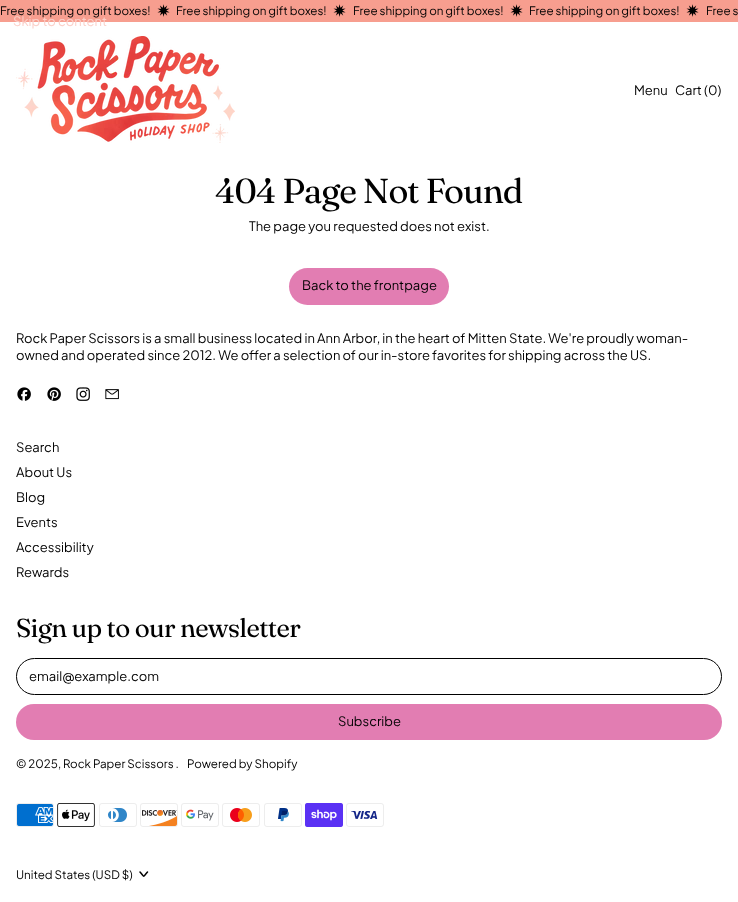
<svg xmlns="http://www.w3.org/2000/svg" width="738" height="902">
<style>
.a{font:11.6px Plus Jakarta Sans;fill:#000}
.b{font:13px Plus Jakarta Sans;fill:#fbcfc8}
.c{font:13px Plus Jakarta Sans;fill:#000}
.d{font:34.75px Fraunces;letter-spacing:-0.9px;fill:#000}
.e{font:26px 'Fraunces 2';letter-spacing:-0.65px;fill:#000}
</style>
<rect width="100%" height="100%" fill="#fff"/>
<path fill="#f79e8f" d="M0 0h738v22H0z"/>
<image href="1.png" x="157" y="4" width="13" height="13"/>
<image href="1.png" x="333" y="4" width="13" height="13"/>
<image href="1.png" x="510" y="4" width="13" height="13"/>
<image href="1.png" x="686" y="4" width="13" height="13"/>
<image href="2.png" x="16" y="36" width="219" height="107"/>
<rect fill="#e27db2" x="289" y="268" width="160" height="37" rx="18.5"/>
<image href="3.png" x="17" y="387" width="14" height="14"/>
<image href="4.png" x="47" y="387" width="14" height="14"/>
<image href="5.png" x="76" y="387" width="14" height="14"/>
<image href="6.png" x="105" y="389" width="14" height="11"/>
<rect fill="none" stroke="#000" x="16.5" y="658.5" width="705" height="36" rx="18"/>
<rect fill="#e27db2" x="16" y="704" width="706" height="36" rx="18"/>
<image href="7.png" x="16" y="803" width="38" height="24"/>
<image href="8.png" x="57" y="803" width="38" height="24"/>
<image href="9.png" x="99" y="803" width="38" height="24"/>
<image href="10.png" x="140" y="803" width="38" height="24"/>
<image href="11.png" x="181" y="803" width="38" height="24"/>
<image href="12.png" x="222" y="803" width="38" height="24"/>
<image href="13.png" x="264" y="803" width="38" height="24"/>
<image href="14.png" x="305" y="803" width="38" height="24"/>
<image href="15.png" x="346" y="803" width="38" height="24"/>
<path fill="none" stroke="#000" stroke-width="1.5" stroke-linecap="round" stroke-linejoin="round" d="M140 872c5 5.5 2.5 5.5 7.5 0"/>
<text class="a" x="0" y="15">Free shipping on gift boxes!</text>
<text class="a" x="176" y="15">Free shipping on gift boxes!</text>
<text class="a" x="353" y="15">Free shipping on gift boxes!</text>
<text class="a" x="529" y="15">Free shipping on gift boxes!</text>
<text class="a" x="706" y="15">Free s</text>
<text class="b" x="13" y="26">Skip to content</text>
<text class="c" x="634" y="95">Menu</text>
<text class="c" x="675" y="95">Cart (0)</text>
<text class="d" x="215" y="203">404 Page Not Found</text>
<text class="c" x="249" y="231">The page you requested does not exist.</text>
<text class="c" x="302" y="290">Back to the frontpage</text>
<text class="c" x="16" y="343">Rock Paper Scissors is a small business located in Ann Arbor, in the heart of Mitten State. We're proudly woman-</text>
<text class="c" x="16" y="360">owned and operated since 2012. We offer a selection of our in-store favorites for shipping across the US.</text>
<text class="c" x="16" y="452">Search</text>
<text class="c" x="16" y="477">About Us</text>
<text class="c" x="16" y="502">Blog</text>
<text class="c" x="16" y="527">Events</text>
<text class="c" x="16" y="552">Accessibility</text>
<text class="c" x="16" y="577">Rewards</text>
<text class="e" x="16" y="637">Sign up to our newsletter</text>
<text class="c" x="29" y="681">email@example.com</text>
<text class="c" x="338" y="726">Subscribe</text>
<text class="a" x="16" y="768">© 2025, Rock Paper Scissors .</text>
<text class="a" x="187" y="768">Powered by Shopify</text>
<text class="a" x="16" y="879">United States (USD $)</text>
</svg>
